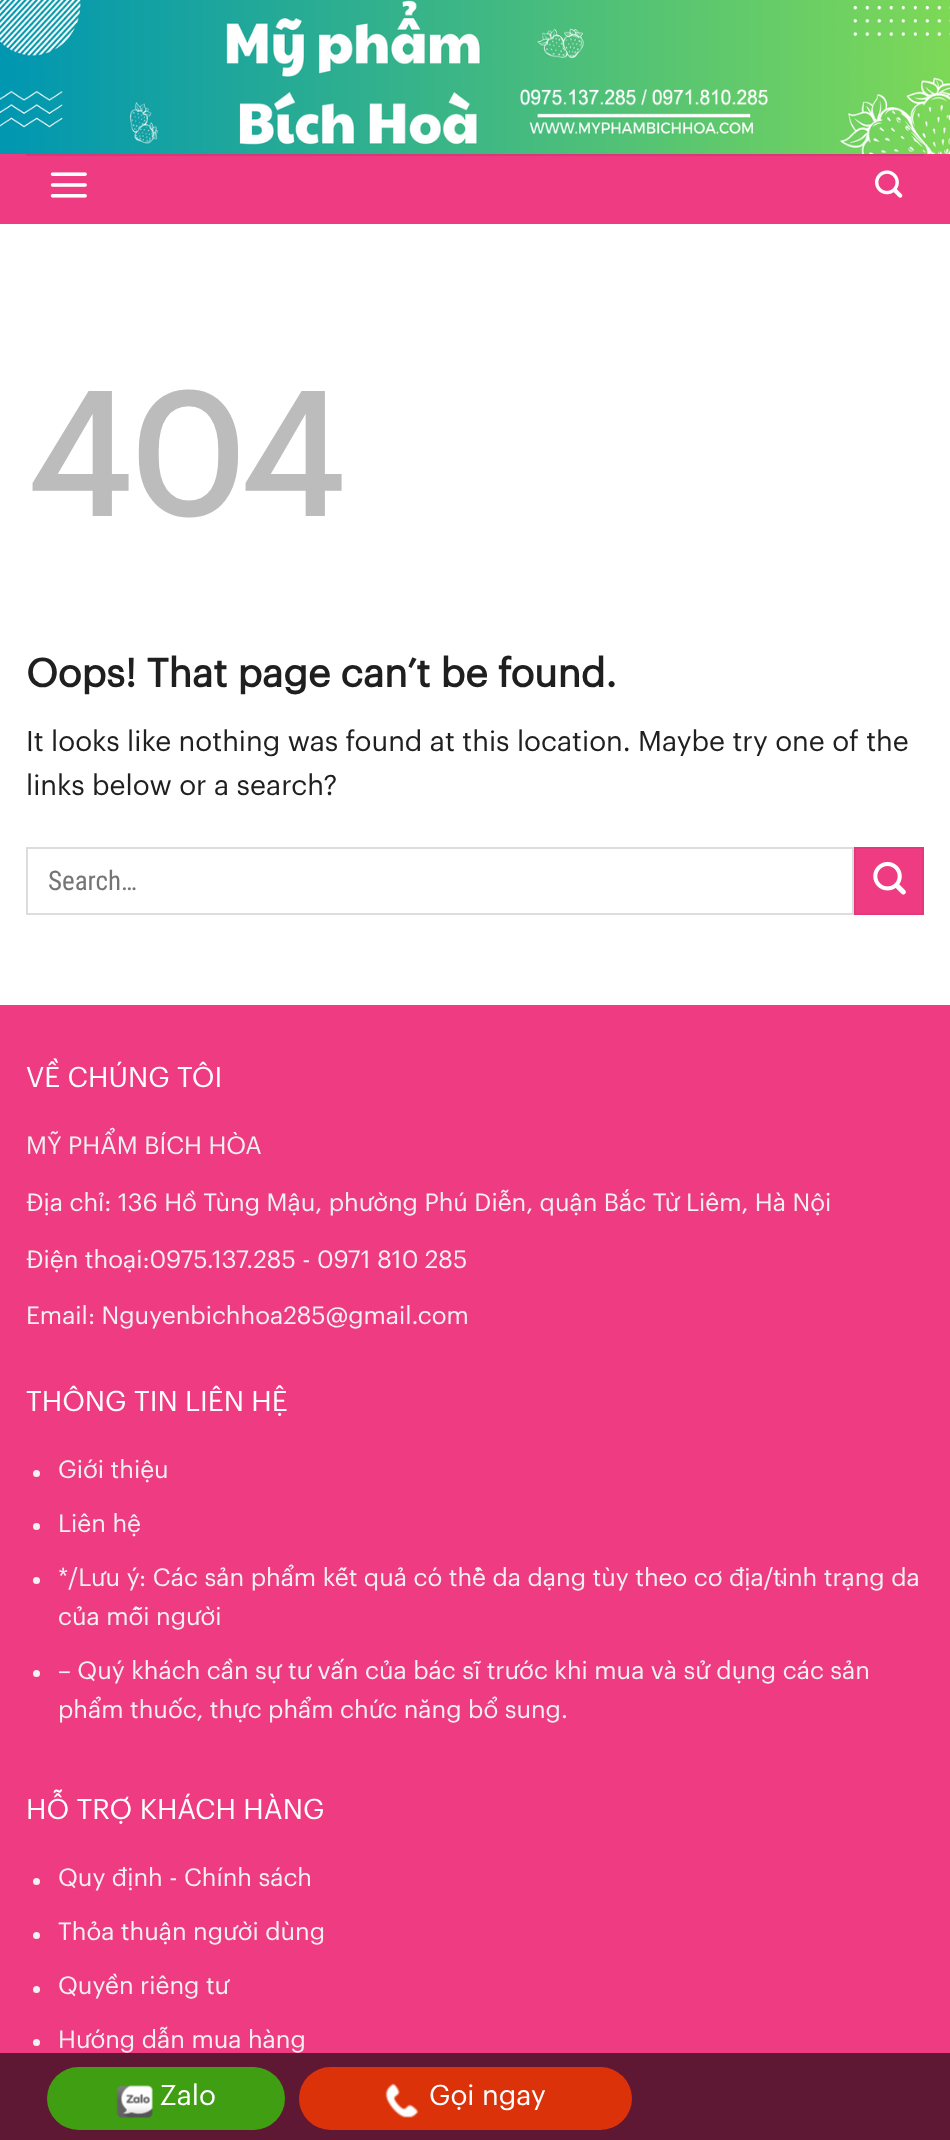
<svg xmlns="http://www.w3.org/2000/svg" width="950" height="2140">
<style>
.a{font:bold 168px Graphik;fill:#bcbcbc}
.b{font:bold 39.25px Graphik;fill:#1f1f1f}
.c{font:28px Graphik;fill:#1f1f1f}
.d{font:27px Roboto Condensed;fill:#757575}
.e{font:28px Graphik;fill:#fff}
.f{font:24.5px Graphik;fill:#f1f1f1}
</style>
<rect width="100%" height="100%" fill="#fff"/>
<image href="1.png" x="0" y="0" width="950" height="154"/>
<path fill="#ee3b82" d="M0 154h950v70H0z"/>
<image href="2.png" x="50" y="172" width="37" height="26"/>
<image href="3.png" x="875" y="170" width="28" height="28"/>
<path fill="#d93878" d="M26 154h898v2H26z"/>
<path fill="none" stroke="#ddd" stroke-width="2" d="M27 848h826v66H27z"/>
<path fill="#ef3b82" stroke="#e3387c" stroke-width="2" d="M855 848h68v66H855z"/>
<image href="4.png" x="873" y="861" width="33" height="34"/>
<path fill="#ee3b82" d="M0 1005h950v1048H0z"/>
<path fill="#5f1834" d="M0 2053h950v87H0z"/>
<circle fill="#f1f1f1" cx="36.5" cy="1473.5" r="3.5"/>
<circle fill="#f1f1f1" cx="36.5" cy="1526.5" r="3.5"/>
<circle fill="#f1f1f1" cx="36.5" cy="1580.5" r="3.5"/>
<circle fill="#f1f1f1" cx="36.5" cy="1673.5" r="3.5"/>
<circle fill="#f1f1f1" cx="36.5" cy="1881.5" r="3.5"/>
<circle fill="#f1f1f1" cx="36.5" cy="1935.5" r="3.5"/>
<circle fill="#f1f1f1" cx="36.5" cy="1989.5" r="3.5"/>
<circle fill="#f1f1f1" cx="36.5" cy="2042.5" r="3.5"/>
<rect fill="#409e12" x="47" y="2067" width="238" height="63" rx="31.5"/>
<image href="5.png" x="116" y="2085" width="37" height="33"/>
<rect fill="#dc320a" x="299" y="2067" width="333" height="63" rx="31.5"/>
<image href="6.png" x="385" y="2083" width="34" height="35"/>
<text class="a" x="26" y="516">404</text>
<text class="b" x="26" y="687">Oops! That page can’t be found.</text>
<text class="c" x="26" y="751">It looks like nothing was found at this location. Maybe try one of the</text>
<text class="c" x="26" y="795">links below or a search?</text>
<text class="d" x="48" y="890">Search…</text>
<text class="e" x="26" y="1087">VỀ CHÚNG TÔI</text>
<text class="f" x="26" y="1154">MỸ PHẨM BÍCH HÒA</text>
<text class="f" x="26" y="1211">Địa chỉ: 136 Hồ Tùng Mậu, phường Phú Diễn, quận Bắc Từ Liêm, Hà Nội</text>
<text class="f" x="26" y="1268">Điện thoại:0975.137.285 - 0971 810 285</text>
<text class="f" x="26" y="1324">Email: Nguyenbichhoa285@gmail.com</text>
<text class="e" x="26" y="1411">THÔNG TIN LIÊN HỆ</text>
<text class="f" x="58" y="1478">Giới thiệu</text>
<text class="f" x="58" y="1532">Liên hệ</text>
<text class="f" x="58" y="1586">*/Lưu ý: Các sản phẩm kết quả có thể da dạng tùy theo cơ địa/tình trạng da</text>
<text class="f" x="58" y="1625">của mỗi người</text>
<text class="f" x="58" y="1679">– Quý khách cần sự tư vấn của bác sĩ trước khi mua và sử dụng các sản</text>
<text class="f" x="58" y="1718">phẩm thuốc, thực phẩm chức năng bổ sung.</text>
<text class="e" x="26" y="1819">HỖ TRỢ KHÁCH HÀNG</text>
<text class="f" x="58" y="1886">Quy định - Chính sách</text>
<text class="f" x="58" y="1940">Thỏa thuận người dùng</text>
<text class="f" x="58" y="1994">Quyền riêng tư</text>
<text class="f" x="58" y="2048">Hướng dẫn mua hàng</text>
<text class="e" x="160" y="2105">Zalo</text>
<text class="e" x="429" y="2105">Gọi ngay</text>
</svg>
